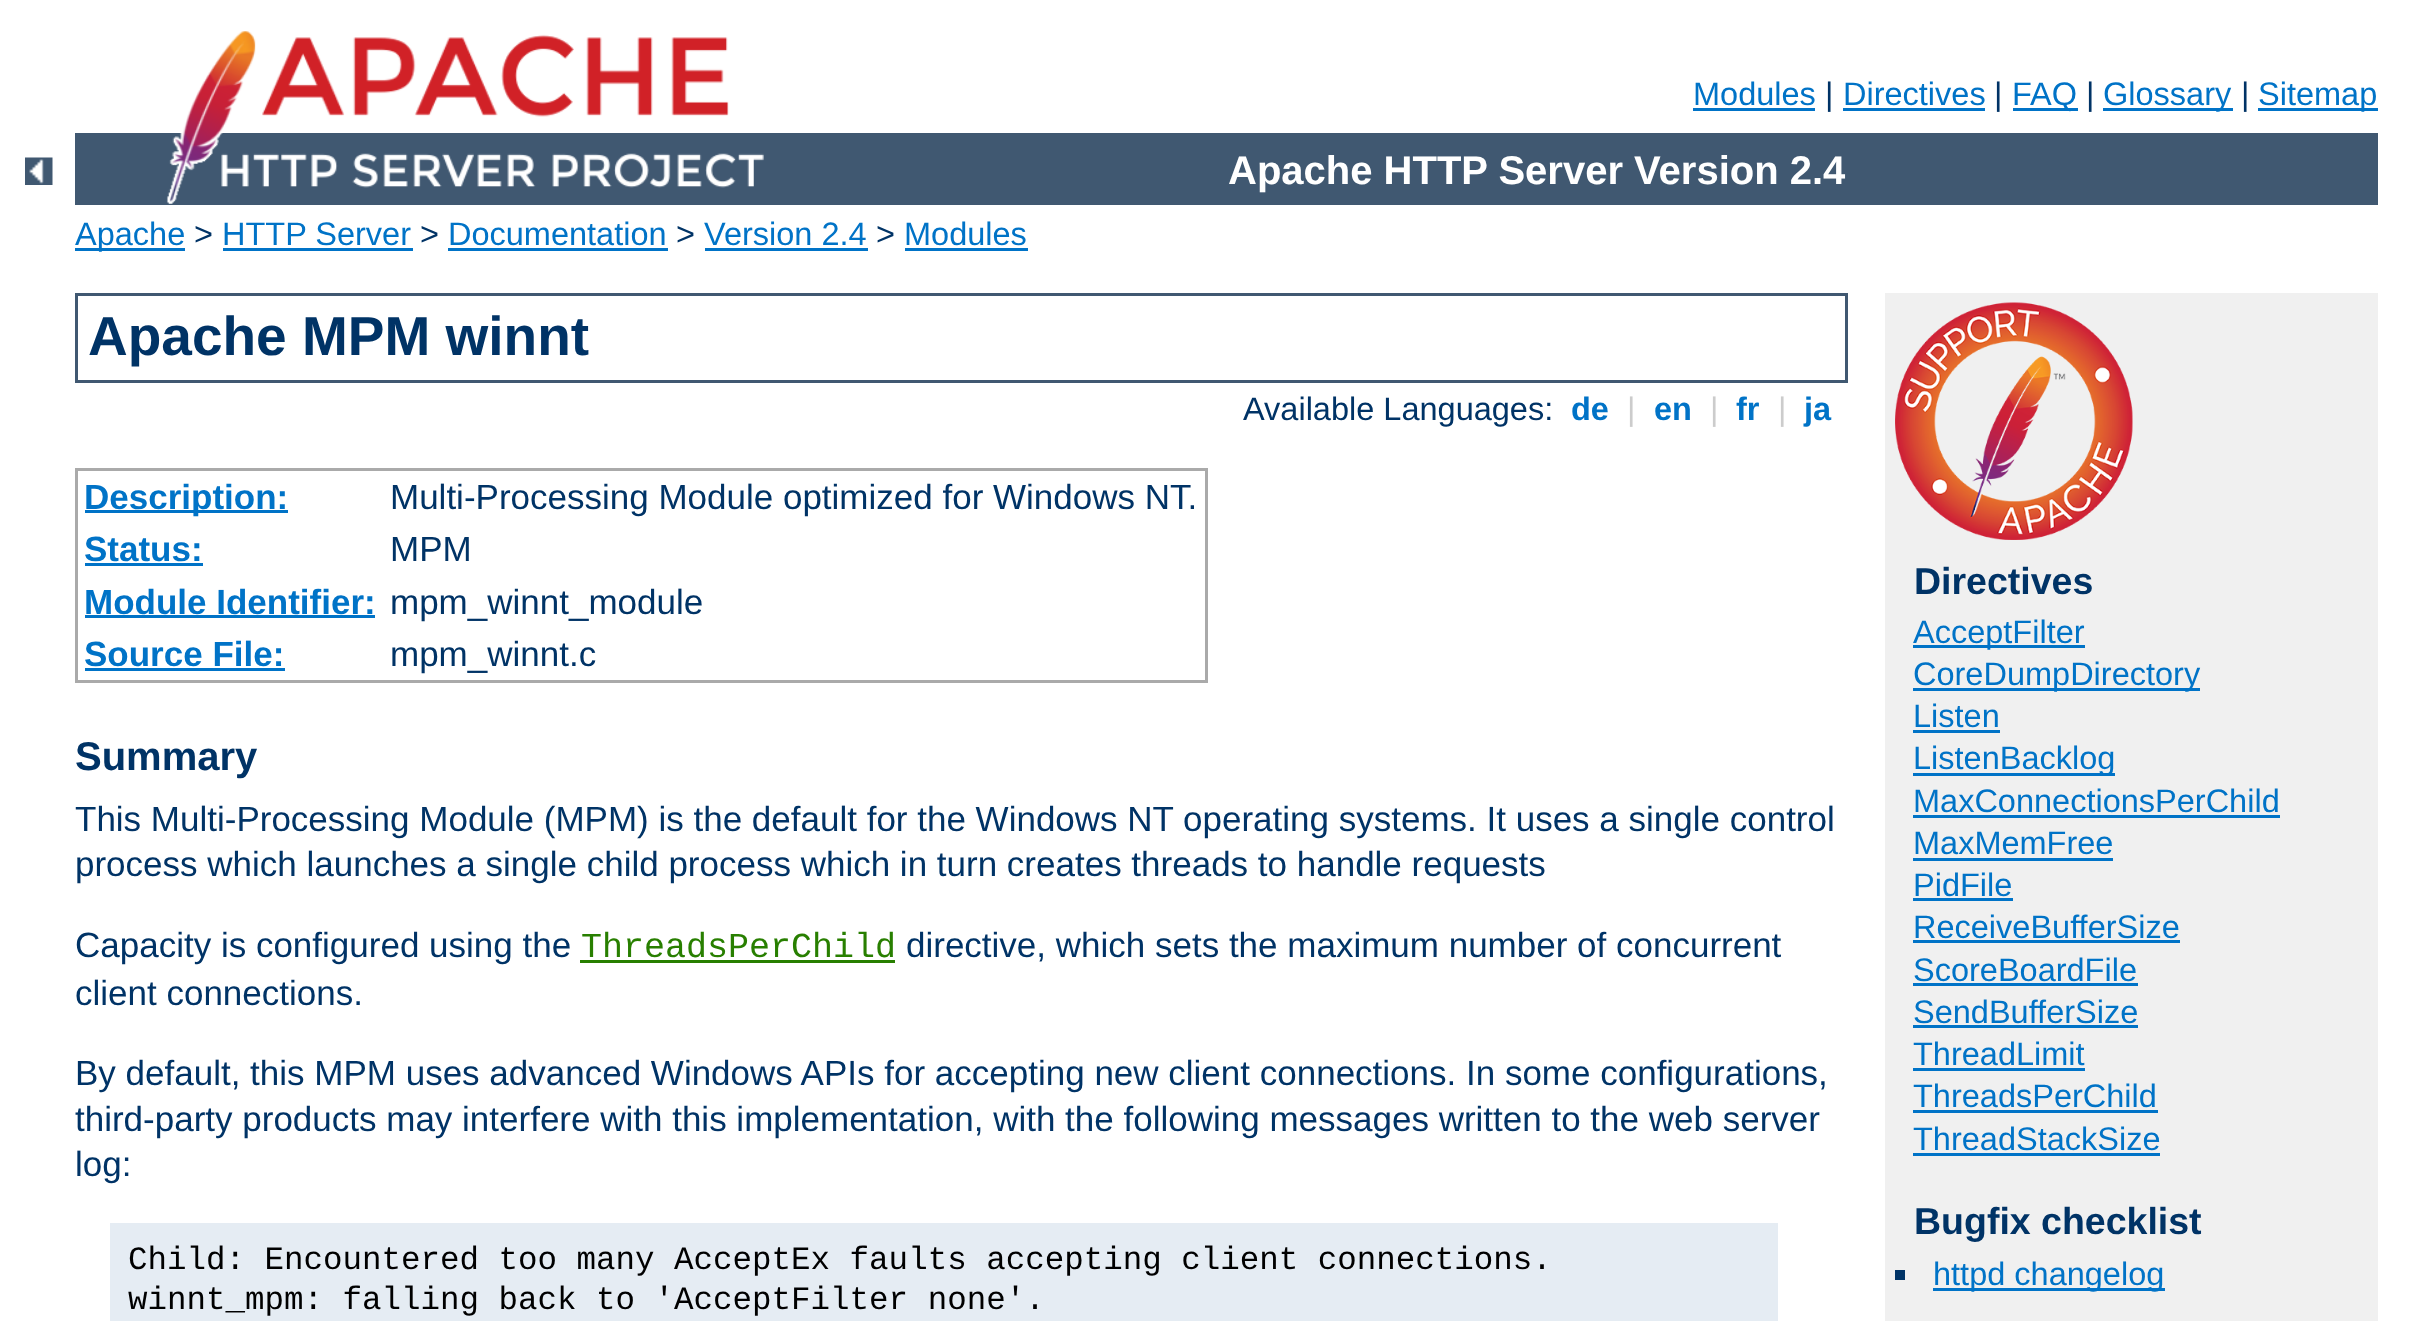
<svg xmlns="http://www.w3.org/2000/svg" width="2412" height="1321">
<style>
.a{font:32.5px Liberation Sans;fill:#0073c7}
.b{font:32.5px Liberation Sans;fill:#036}
.c{font:bold 40px Liberation Sans;fill:#fff}
.d{font:bold 55px Liberation Sans;fill:#036}
.e{font:bold 32.5px Liberation Sans;fill:#0073c7}
.f{font:32.5px Liberation Sans;fill:#ccc}
.g{font:bold 35px Liberation Sans;fill:#0073c7}
.h{font:35px Liberation Sans;fill:#036}
.i{font:bold 40px Liberation Sans;fill:#036}
.j{font:35px Liberation Mono;fill:#287f00}
.k{font:32.5px Liberation Mono;fill:#000}
.l{font:bold 37.5px Liberation Sans;fill:#036}
</style>
<rect width="100%" height="100%" fill="#fff"/>
<image href="1.png" x="25" y="157" width="28" height="28"/>
<path fill="#405871" d="M75 133h2303v72H75z"/>
<image href="2.png" x="166" y="31" width="598" height="173"/>
<path fill="#0073c7" d="M1693 108h122v3H1693z"/>
<path fill="#0073c7" d="M1843 108h142v3H1843z"/>
<path fill="#0073c7" d="M2013 108h65v3H2013z"/>
<path fill="#0073c7" d="M2103 108h130v3H2103z"/>
<path fill="#0073c7" d="M2258 108h120v3H2258z"/>
<path fill="#0073c7" d="M75 248h110v3H75z"/>
<path fill="#0073c7" d="M223 248h190v3H223z"/>
<path fill="#0073c7" d="M448 248h220v3H448z"/>
<path fill="#0073c7" d="M705 248h163v3H705z"/>
<path fill="#0073c7" d="M905 248h123v3H905z"/>
<path fill="none" stroke="#405871" stroke-width="3" d="M76.5 294.5h1770v87H76.5z"/>
<path fill="#aaa" d="M75 468h1133v3H75z"/>
<path fill="#aaa" d="M1205 468h3v215H1205z"/>
<path fill="#aaa" d="M75 680h1133v3H75z"/>
<path fill="#aaa" d="M75 468h3v215H75z"/>
<path fill="#0073c7" d="M85 510h203v3H85z"/>
<path fill="#0073c7" d="M85 563h118v3H85z"/>
<path fill="#0073c7" d="M85 615h290v3H85z"/>
<path fill="#0073c7" d="M85 668h200v3H85z"/>
<path fill="#287f00" d="M580 960h315v3H580z"/>
<path fill="#e5ecf3" d="M110 1223h1668v98H110z"/>
<path fill="#f0f0f0" d="M1885 293h493v1028H1885z"/>
<image href="3.png" x="1895" y="302" width="238" height="238"/>
<path fill="#0073c7" d="M1913 645h172v3H1913z"/>
<path fill="#0073c7" d="M1913 688h287v3H1913z"/>
<path fill="#0073c7" d="M1913 730h87v3H1913z"/>
<path fill="#0073c7" d="M1913 773h202v3H1913z"/>
<path fill="#0073c7" d="M1913 815h367v3H1913z"/>
<path fill="#0073c7" d="M1913 858h200v3H1913z"/>
<path fill="#0073c7" d="M1913 898h100v3H1913z"/>
<path fill="#0073c7" d="M1913 940h267v3H1913z"/>
<path fill="#0073c7" d="M1913 983h225v3H1913z"/>
<path fill="#0073c7" d="M1913 1025h225v3H1913z"/>
<path fill="#0073c7" d="M1913 1068h172v3H1913z"/>
<path fill="#0073c7" d="M1913 1110h245v3H1913z"/>
<path fill="#0073c7" d="M1913 1153h247v3H1913z"/>
<path fill="#036" d="M1895 1270h10v10H1895z"/>
<path fill="#0073c7" d="M1933 1288h232v3H1933z"/>
<text class="a" x="1693" y="105">Modules</text>
<text class="b" x="1825" y="105">|</text>
<text class="a" x="1843" y="105">Directives</text>
<text class="b" x="1994" y="105">|</text>
<text class="a" x="2012" y="105">FAQ</text>
<text class="b" x="2086" y="105">|</text>
<text class="a" x="2103" y="105">Glossary</text>
<text class="b" x="2241" y="105">|</text>
<text class="a" x="2258" y="105">Sitemap</text>
<text class="c" x="1228" y="184">Apache HTTP Server Version 2.4</text>
<text class="a" x="75" y="245">Apache</text>
<text class="b" x="194" y="245">&gt;</text>
<text class="a" x="222" y="245">HTTP Server</text>
<text class="b" x="420" y="245">&gt;</text>
<text class="a" x="448" y="245">Documentation</text>
<text class="b" x="676" y="245">&gt;</text>
<text class="a" x="704" y="245">Version 2.4</text>
<text class="b" x="876" y="245">&gt;</text>
<text class="a" x="904" y="245">Modules</text>
<text class="d" x="88" y="355">Apache MPM winnt</text>
<text class="b" x="1243" y="420">Available Languages:</text>
<text class="e" x="1571" y="420">de</text>
<text class="f" x="1627" y="420">|</text>
<text class="e" x="1654" y="420">en</text>
<text class="f" x="1710" y="420">|</text>
<text class="e" x="1736" y="420">fr</text>
<text class="f" x="1778" y="420">|</text>
<text class="e" x="1804" y="420">ja</text>
<text class="g" x="84" y="509">Description:</text>
<text class="h" x="390" y="509">Multi-Processing Module optimized for Windows NT.</text>
<text class="g" x="84" y="561">Status:</text>
<text class="h" x="390" y="561">MPM</text>
<text class="g" x="84" y="614">Module Identifier:</text>
<text class="h" x="390" y="614">mpm_winnt_module</text>
<text class="g" x="84" y="666">Source File:</text>
<text class="h" x="390" y="666">mpm_winnt.c</text>
<text class="i" x="75" y="770">Summary</text>
<text class="h" x="75" y="831">This Multi-Processing Module (MPM) is the default for the Windows NT operating systems. It uses a single control</text>
<text class="h" x="75" y="876">process which launches a single child process which in turn creates threads to handle requests</text>
<text class="h" x="75" y="957">Capacity is configured using the</text>
<text class="j" x="581" y="957">ThreadsPerChild</text>
<text class="h" x="906" y="957">directive, which sets the maximum number of concurrent</text>
<text class="h" x="75" y="1005">client connections.</text>
<text class="h" x="75" y="1085">By default, this MPM uses advanced Windows APIs for accepting new client connections. In some configurations,</text>
<text class="h" x="75" y="1131">third-party products may interfere with this implementation, with the following messages written to the web server</text>
<text class="h" x="75" y="1176">log:</text>
<text class="k" x="128" y="1269">Child: Encountered too many AcceptEx faults accepting client connections.</text>
<text class="k" x="128" y="1309">winnt_mpm: falling back to 'AcceptFilter none'.</text>
<text class="l" x="1914" y="594">Directives</text>
<text class="a" x="1913" y="643">AcceptFilter</text>
<text class="a" x="1913" y="685">CoreDumpDirectory</text>
<text class="a" x="1913" y="727">Listen</text>
<text class="a" x="1913" y="769">ListenBacklog</text>
<text class="a" x="1913" y="812">MaxConnectionsPerChild</text>
<text class="a" x="1913" y="854">MaxMemFree</text>
<text class="a" x="1913" y="896">PidFile</text>
<text class="a" x="1913" y="938">ReceiveBufferSize</text>
<text class="a" x="1913" y="981">ScoreBoardFile</text>
<text class="a" x="1913" y="1023">SendBufferSize</text>
<text class="a" x="1913" y="1065">ThreadLimit</text>
<text class="a" x="1913" y="1107">ThreadsPerChild</text>
<text class="a" x="1913" y="1150">ThreadStackSize</text>
<text class="l" x="1914" y="1234">Bugfix checklist</text>
<text class="a" x="1933" y="1285">httpd changelog</text>
</svg>
